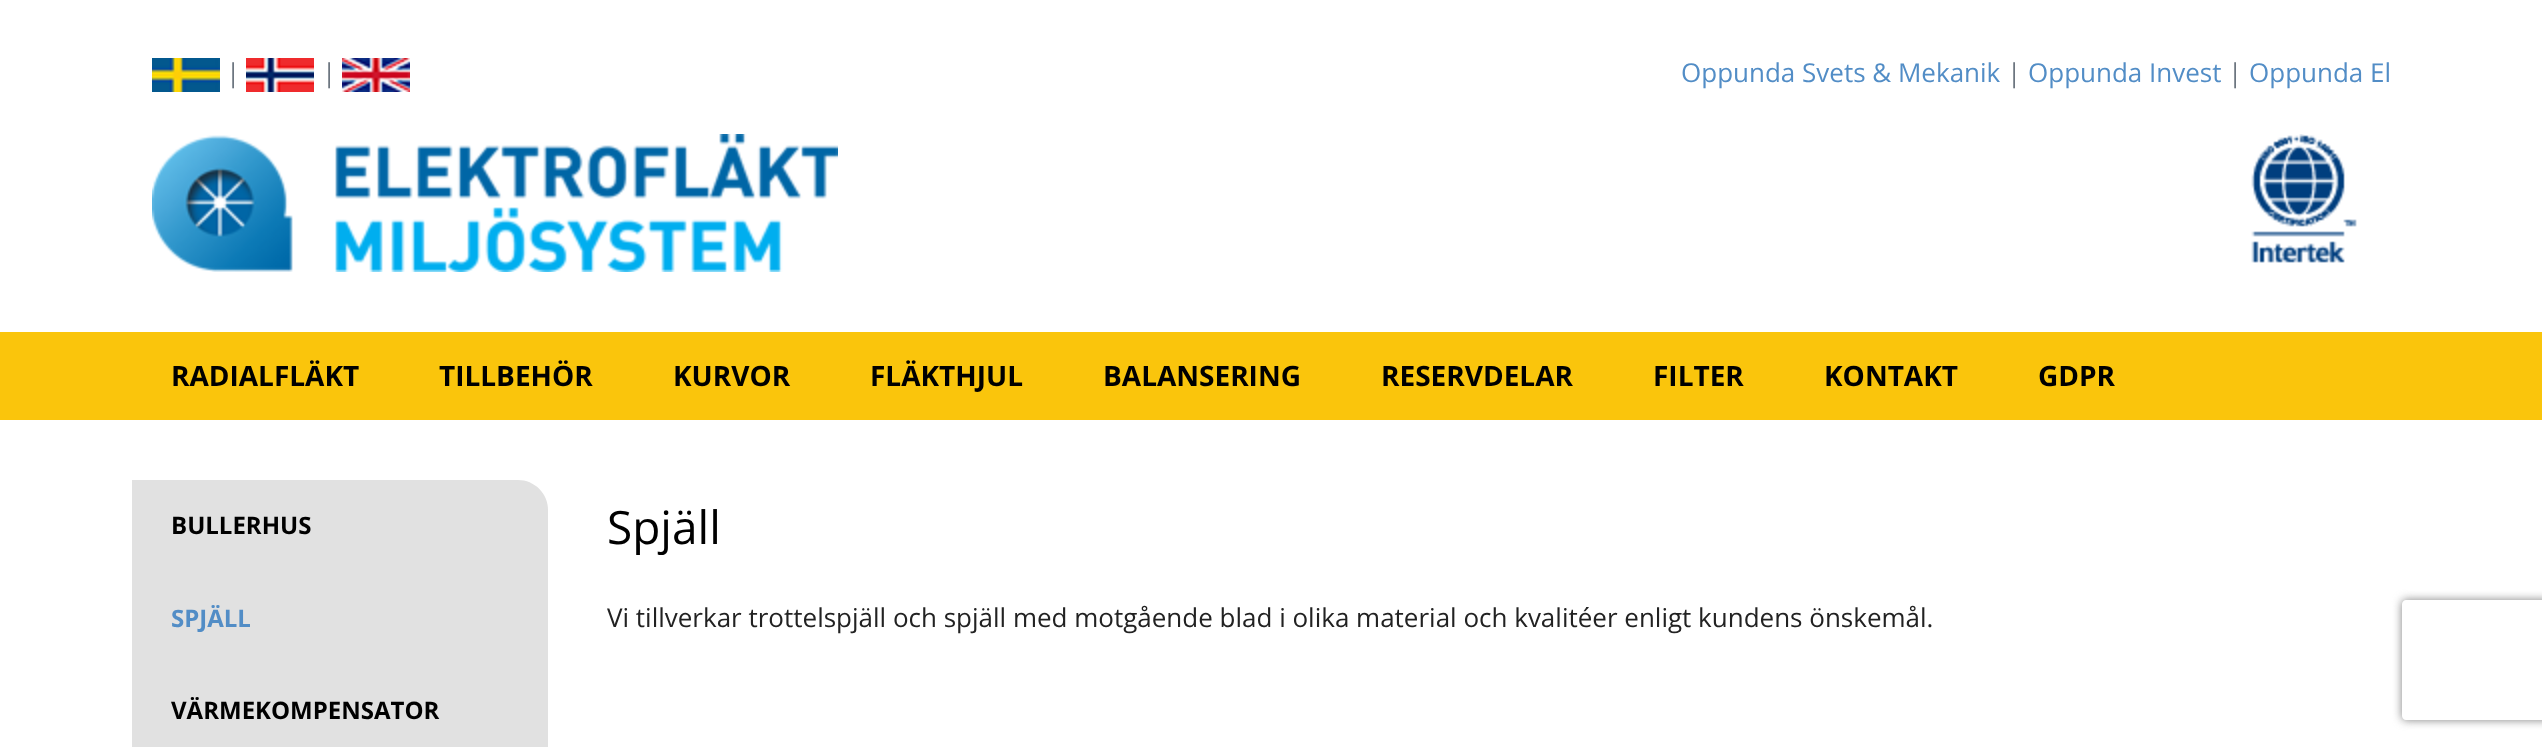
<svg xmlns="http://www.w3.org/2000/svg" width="2542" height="747">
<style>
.a{font:26px Open Sans;fill:#6d7680}
.b{font:26px Open Sans;fill:#528dc6}
.c{font:bold 28px Open Sans;fill:#000}
.d{font:bold 24px Open Sans;fill:#000}
.e{font:bold 24px Open Sans;fill:#528dc6}
.f{font:46px Open Sans;fill:#000}
.g{font:26px Open Sans;fill:#222}
</style>
<defs>
<clipPath id="clip1"><path d="M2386 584h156v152h-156zm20 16h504c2 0 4 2 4 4v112c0 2-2 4-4 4h-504c-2 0-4-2-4-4v-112c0-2 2-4 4-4z" clip-rule="evenodd"/></clipPath>
</defs>
<rect width="100%" height="100%" fill="#fff"/>
<image href="1.png" x="152" y="58" width="68" height="34"/>
<image href="2.png" x="246" y="58" width="68" height="34"/>
<image href="3.png" x="342" y="58" width="68" height="34"/>
<image href="4.png" x="152" y="134" width="686" height="138"/>
<image href="5.png" x="2251" y="134" width="106" height="129"/>
<path fill="#fac50c" d="M0 332h2542v88H0z"/>
<path fill="#e1e1e1" d="M132 480h386c16.5 0 30 13.5 30 30v237c0 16.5-13.5 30-30 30h-386z"/>
<g clip-path="url(#clip1)">
<rect fill="#808080" filter="blur(5px)" x="2402" y="600" width="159" height="120" rx="4"/>
</g>
<text class="a" x="226" y="82">|</text>
<text class="a" x="322" y="82">|</text>
<text class="b" x="1681" y="82">Oppunda Svets &amp; Mekanik</text>
<text class="a" x="2007" y="82">|</text>
<text class="b" x="2028" y="82">Oppunda Invest</text>
<text class="a" x="2228" y="82">|</text>
<text class="b" x="2249" y="82">Oppunda El</text>
<text class="c" x="171" y="386">RADIALFLÄKT</text>
<text class="c" x="439" y="386">TILLBEHÖR</text>
<text class="c" x="673" y="386">KURVOR</text>
<text class="c" x="870" y="386">FLÄKTHJUL</text>
<text class="c" x="1103" y="386">BALANSERING</text>
<text class="c" x="1381" y="386">RESERVDELAR</text>
<text class="c" x="1653" y="386">FILTER</text>
<text class="c" x="1824" y="386">KONTAKT</text>
<text class="c" x="2038" y="386">GDPR</text>
<text class="d" x="171" y="534">BULLERHUS</text>
<text class="e" x="171" y="627">SPJÄLL</text>
<text class="d" x="171" y="719">VÄRMEKOMPENSATOR</text>
<text class="f" x="607" y="544">Spjäll</text>
<text class="g" x="607" y="627">Vi tillverkar trottelspjäll och spjäll med motgående blad i olika material och kvalitéer enligt kundens önskemål.</text>
</svg>
